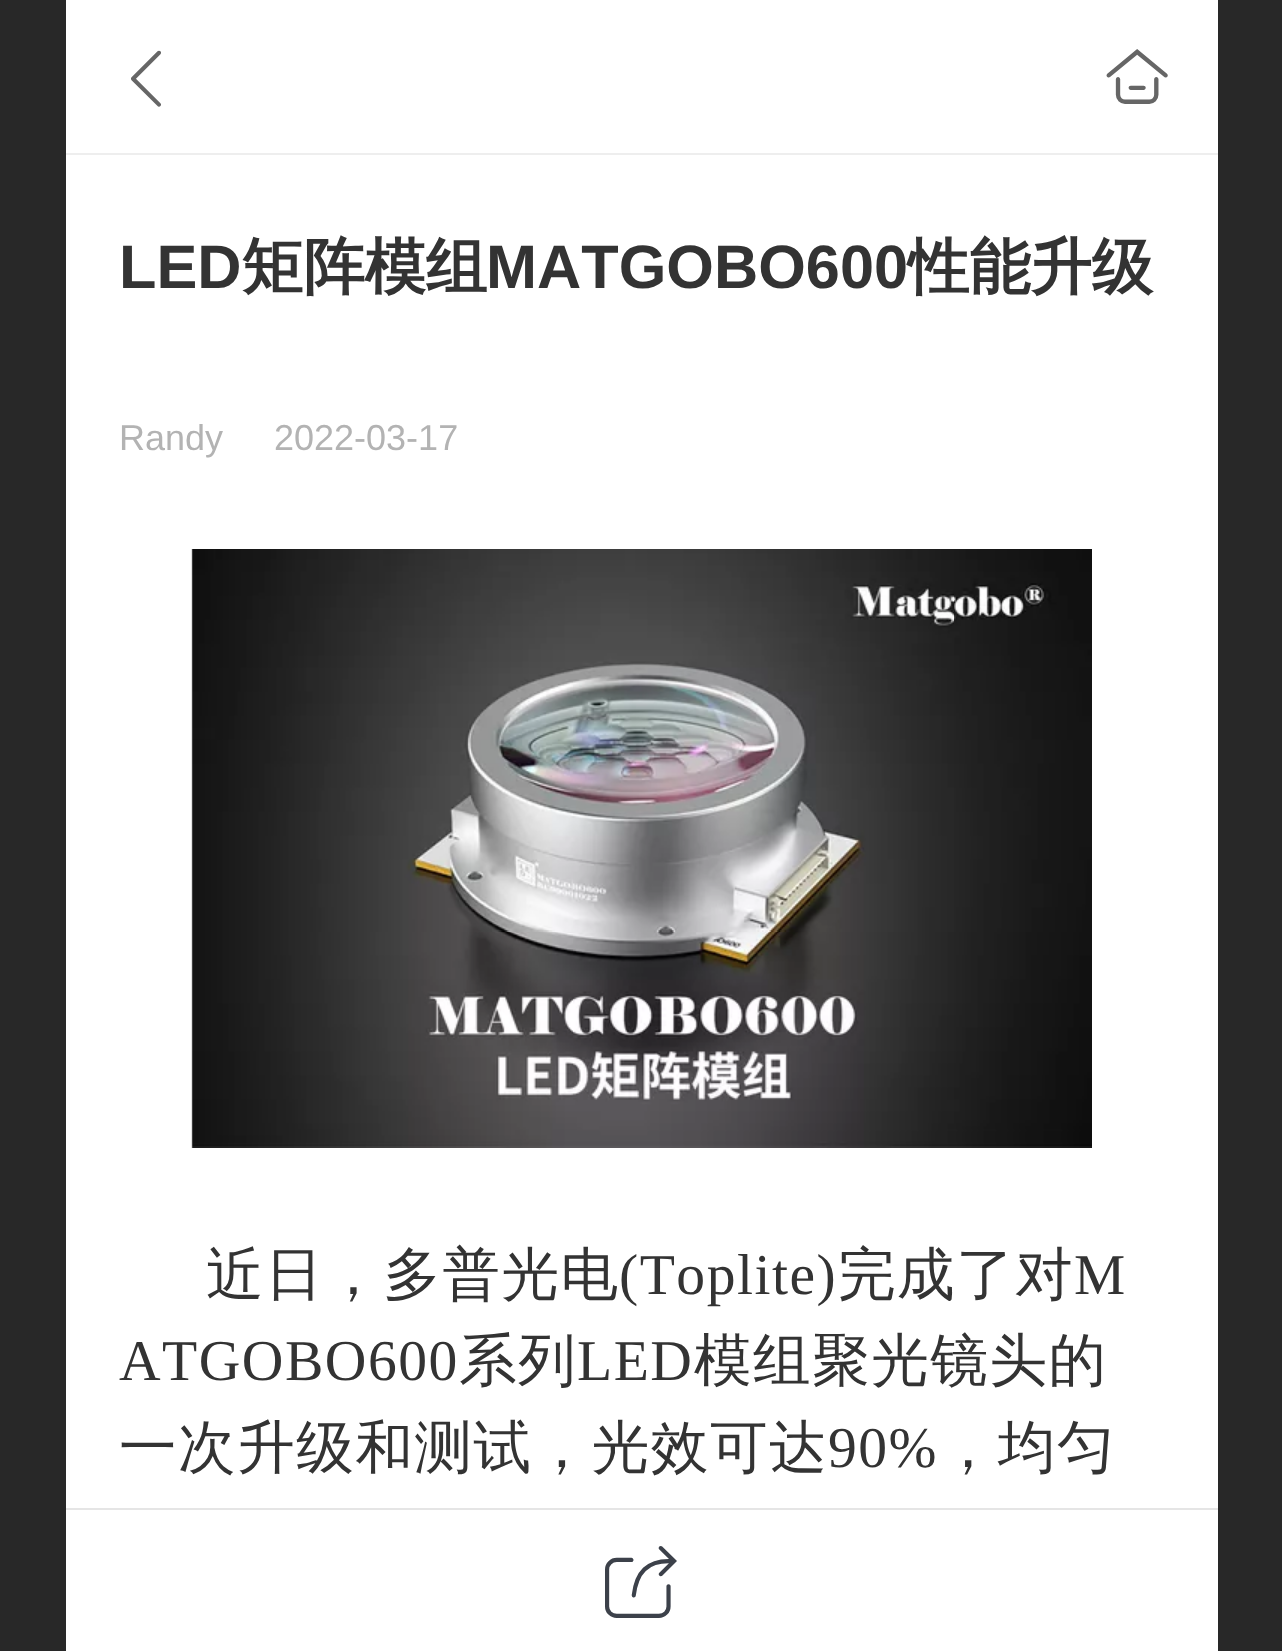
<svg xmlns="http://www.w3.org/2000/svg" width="1282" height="1651">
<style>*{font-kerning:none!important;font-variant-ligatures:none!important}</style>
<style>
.a{font:56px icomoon;fill:#666}
.b{font:61.25px icomoon;fill:#666}
.c{font:bold 61.25px Liberation Sans;fill:#333}
.d{font:bold 61.25px WenQuanYi Zen Hei;fill:#333}
.e{font:36px Liberation Sans;fill:#b3b3b3}
.f{font:500 57.6px WenQuanYi Zen Hei;letter-spacing:1.5px;fill:#333}
.g{font:57.6px Liberation Serif;letter-spacing:1.5px;fill:#333}
.h{font:72px icomoon;fill:#3c414a}
</style>
<rect width="100%" height="100%" fill="#fff"/>
<path fill="#282828" d="M0 0h66v1651H0z"/>
<path fill="#eee" d="M66 153h1152v2H66z"/>
<image href="1.png" x="191" y="549" width="901" height="599"/>
<path fill="#e5e5e5" d="M66 1508h1152v2H66z"/>
<path fill="#282828" d="M1218 0h64v1651H1218z"/>
<text class="a" x="118" y="102">򰊔</text>
<text class="b" x="1106" y="102">򰌓</text>
<text class="c" x="119" y="288">LED</text>
<text class="d" x="242" y="288">矩阵模组</text>
<text class="c" x="486" y="288">MATGOBO600</text>
<text class="d" x="908" y="288">性能升级</text>
<text class="e" x="119" y="450">Randy</text>
<text class="e" x="274" y="450">2022-03-17</text>
<text class="f" x="206" y="1294">近日，多普光电</text>
<text class="g" x="619" y="1294">(Toplite)</text>
<text class="f" x="838" y="1294">完成了对</text>
<text class="g" x="1074" y="1294">M</text>
<text class="g" x="119" y="1380">ATGOBO600</text>
<text class="f" x="459" y="1380">系列</text>
<text class="g" x="577" y="1380">LED</text>
<text class="f" x="694" y="1380">模组聚光镜头的</text>
<text class="f" x="119" y="1467">一次升级和测试，光效可达</text>
<text class="g" x="828" y="1467">90%</text>
<text class="f" x="939" y="1467">，均匀</text>
<text class="h" x="605" y="1612">򰌐</text>
</svg>
